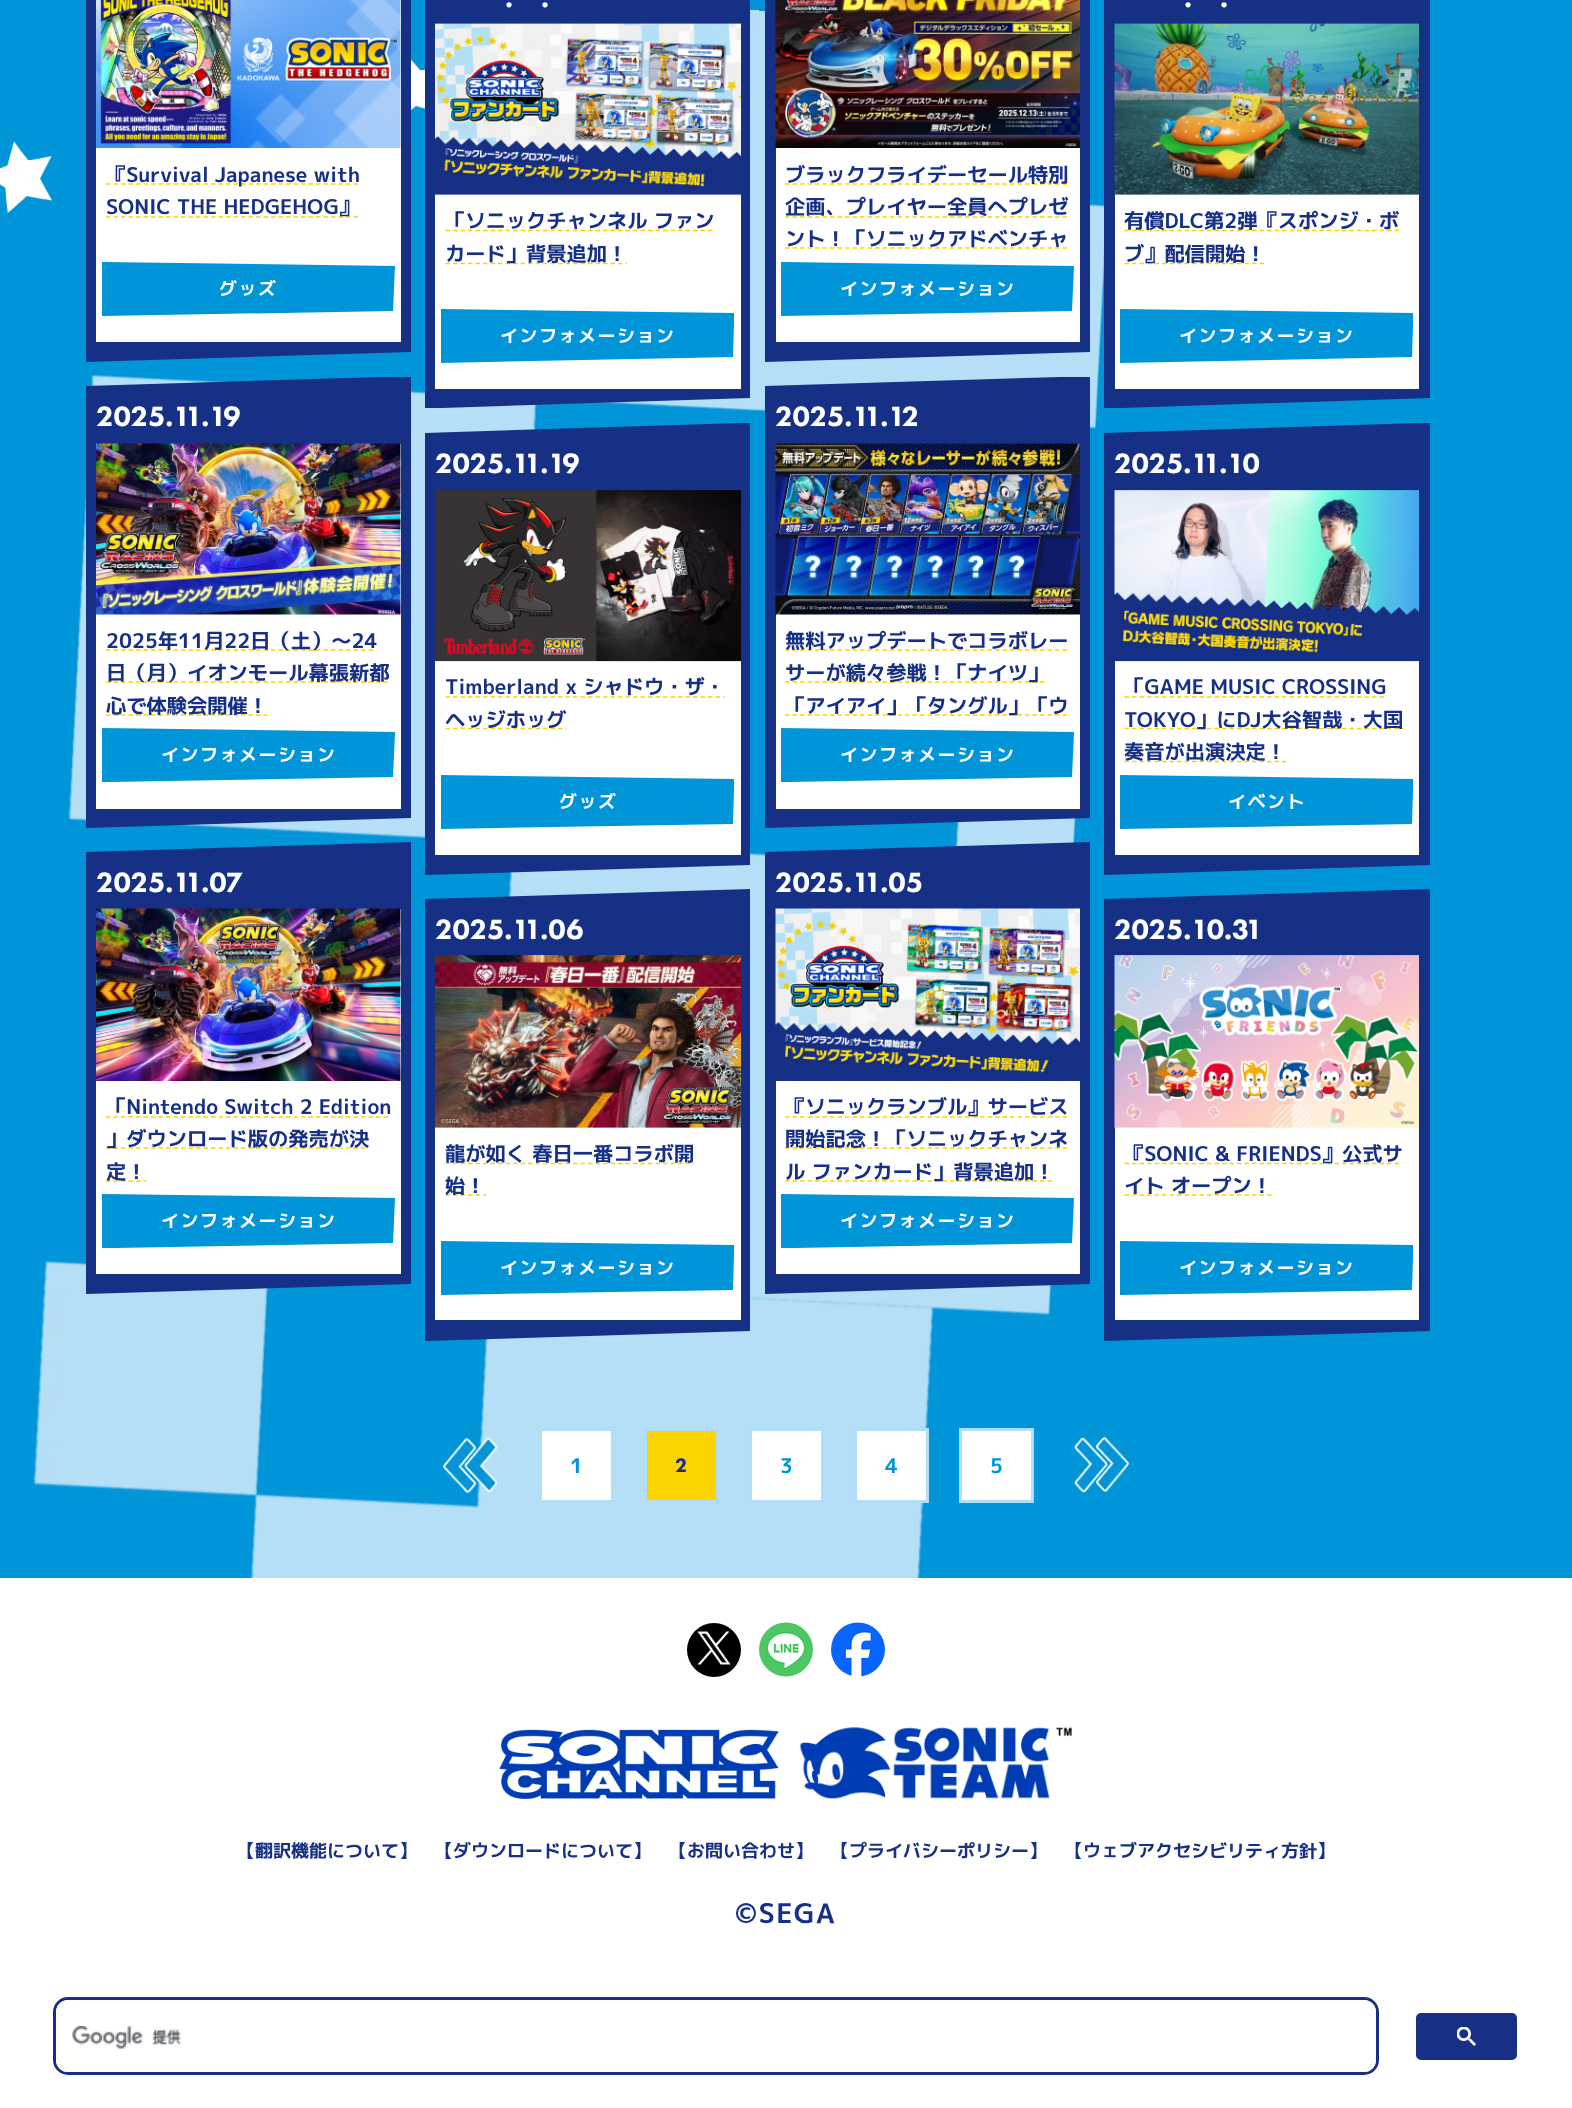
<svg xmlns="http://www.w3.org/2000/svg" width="1572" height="2108">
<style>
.a{font:bold 20.25px 'M PLUS 1p';fill:#163086}
.b{font:bold 18px 'M PLUS 1p';letter-spacing:1.5px;fill:#fff}
.c{font:900 29px Futura PT;fill:#fff}
.d{font:bold 20.25px 'M PLUS 1p';fill:#0094d8}
.e{font:900 20.25px Futura PT;fill:#163086}
.f{font:bold 18px 'M PLUS 1p';fill:#163086}
.g{font:bold 27px 'M PLUS 1p';letter-spacing:1.5px;fill:#163086}
</style>
<rect width="100%" height="100%" fill="#0094d8"/>
<image href="14.png" x="33" y="10" width="1071" height="1568"/>
<image href="13.png" x="0" y="59" width="425" height="154"/>
<path fill="#163086" d="M411 352l-325 10v-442l325-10z"/>
<path fill="#fff" d="M96 0h305v342H96z"/>
<image href="1.png" x="96" y="0" width="305" height="148"/>
<path fill="none" stroke="#fbd300" stroke-width="1.5" stroke-dasharray="4.5 3" d="M106 184h253.5"/>
<path fill="none" stroke="#fbd300" stroke-width="1.5" stroke-dasharray="4.5 3" d="M106 217h252.5"/>
<path fill="#0094d8" d="M103 316l290-5l2-45l-293-4v54z"/>
<path fill="#163086" d="M425-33v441h17l308-10v-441h-13z"/>
<path fill="#fff" d="M435 194h306v195H435z"/>
<image href="2.png" x="435" y="23" width="306" height="172"/>
<path fill="none" stroke="#fbd300" stroke-width="1.5" stroke-dasharray="4.5 3" d="M445.5 230.5h268.5"/>
<path fill="none" stroke="#fbd300" stroke-width="1.5" stroke-dasharray="4.5 3" d="M445.5 263.5h181.5"/>
<path fill="#0094d8" d="M734 323l-1 34l-292 6v-54l293 4z"/>
<path fill="#163086" d="M1090-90v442l-325 10v-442z"/>
<path fill="#fff" d="M776 0h304v342H776z"/>
<image href="3.png" x="775" y="0" width="305" height="148"/>
<path fill="none" stroke="#fbd300" stroke-width="1.5" stroke-dasharray="4.5 3" d="M785 184h283"/>
<path fill="none" stroke="#fbd300" stroke-width="1.5" stroke-dasharray="4.5 3" d="M785 217h283"/>
<path fill="none" stroke="#fbd300" stroke-width="1.5" stroke-dasharray="4.5 3" d="M785 248h283"/>
<path fill="#0094d8" d="M782 316l290-5l2-45l-293-4v54z"/>
<path fill="#163086" d="M1104-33v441h17l309-10v-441h-14z"/>
<path fill="#fff" d="M1115 24h304v365H1115z"/>
<image href="4.png" x="1114" y="23" width="305" height="172"/>
<path fill="none" stroke="#fbd300" stroke-width="1.5" stroke-dasharray="4.5 3" d="M1124.5 230.5h274.5"/>
<path fill="none" stroke="#fbd300" stroke-width="1.5" stroke-dasharray="4.5 3" d="M1124.5 263.5h141.5"/>
<path fill="#0094d8" d="M1413 325l-1 32l-292 6v-54l293 4z"/>
<path fill="#163086" d="M411 818l-325 10v-442l295-9h30z"/>
<path fill="#fff" d="M96 444h305v365H96z"/>
<image href="5.png" x="96" y="443" width="305" height="172"/>
<path fill="none" stroke="#fbd300" stroke-width="1.5" stroke-dasharray="4.5 3" d="M106 650h270.5"/>
<path fill="none" stroke="#fbd300" stroke-width="1.5" stroke-dasharray="4.5 3" d="M106 682h282.5"/>
<path fill="none" stroke="#fbd300" stroke-width="1.5" stroke-dasharray="4.5 3" d="M106 715h161.5"/>
<path fill="#0094d8" d="M109 782l284-5l2-45l-293-4v54z"/>
<path fill="#163086" d="M425 433v442l325-10v-442h-10z"/>
<path fill="#fff" d="M435 661h306v194H435z"/>
<image href="6.png" x="435" y="490" width="306" height="172"/>
<path fill="none" stroke="#fbd300" stroke-width="1.5" stroke-dasharray="4.5 3" d="M445.5 697h279"/>
<path fill="none" stroke="#fbd300" stroke-width="1.5" stroke-dasharray="4.5 3" d="M445.5 728.5h121"/>
<path fill="#0094d8" d="M734 789l-1 35l-292 5v-54l293 4z"/>
<path fill="#163086" d="M1090 377v441l-325 10v-442l295-9z"/>
<path fill="#fff" d="M776 614h304v195H776z"/>
<image href="7.png" x="775" y="443" width="305" height="172"/>
<path fill="none" stroke="#fbd300" stroke-width="1.5" stroke-dasharray="4.5 3" d="M785 650h283"/>
<path fill="none" stroke="#fbd300" stroke-width="1.5" stroke-dasharray="4.5 3" d="M785 682h262.5"/>
<path fill="none" stroke="#fbd300" stroke-width="1.5" stroke-dasharray="4.5 3" d="M785 715h283"/>
<path fill="#0094d8" d="M788 782l284-5l2-45l-293-4v54z"/>
<path fill="#163086" d="M1104 433v442l326-10v-442h-11z"/>
<path fill="#fff" d="M1115 661h304v194H1115z"/>
<image href="8.png" x="1114" y="490" width="305" height="172"/>
<path fill="none" stroke="#fbd300" stroke-width="1.5" stroke-dasharray="4.5 3" d="M1124.5 697h262"/>
<path fill="none" stroke="#fbd300" stroke-width="1.5" stroke-dasharray="4.5 3" d="M1124.5 728.5h278.5"/>
<path fill="none" stroke="#fbd300" stroke-width="1.5" stroke-dasharray="4.5 3" d="M1124.5 761.5h161.5"/>
<path fill="#0094d8" d="M1413 791l-1 33l-292 5v-54l293 4z"/>
<path fill="#163086" d="M86 1294v-442l325-10v442z"/>
<path fill="#fff" d="M96 909h305v365H96z"/>
<image href="9.png" x="96" y="908" width="305" height="173"/>
<path fill="none" stroke="#fbd300" stroke-width="1.5" stroke-dasharray="4.5 3" d="M106 1117h284.5"/>
<path fill="none" stroke="#fbd300" stroke-width="1.5" stroke-dasharray="4.5 3" d="M106 1148h262.5"/>
<path fill="none" stroke="#fbd300" stroke-width="1.5" stroke-dasharray="4.5 3" d="M106 1181h40"/>
<path fill="#0094d8" d="M115 1248l278-5l2-45l-293-4v54z"/>
<path fill="#163086" d="M425 899l325-10v442l-325 10z"/>
<path fill="#fff" d="M435 1127h306v193H435z"/>
<image href="10.png" x="435" y="955" width="306" height="173"/>
<path fill="none" stroke="#fbd300" stroke-width="1.5" stroke-dasharray="4.5 3" d="M445.5 1163.5h248.5"/>
<path fill="none" stroke="#fbd300" stroke-width="1.5" stroke-dasharray="4.5 3" d="M445.5 1195h40.5"/>
<path fill="#0094d8" d="M734 1255l-1 35l-292 5v-54l293 4z"/>
<path fill="#163086" d="M765 1294v-442l325-10v442z"/>
<path fill="#fff" d="M776 1081h304v193H776z"/>
<image href="11.png" x="775" y="908" width="305" height="173"/>
<path fill="none" stroke="#fbd300" stroke-width="1.5" stroke-dasharray="4.5 3" d="M785 1117h283"/>
<path fill="none" stroke="#fbd300" stroke-width="1.5" stroke-dasharray="4.5 3" d="M785 1148h283"/>
<path fill="none" stroke="#fbd300" stroke-width="1.5" stroke-dasharray="4.5 3" d="M785 1181h268.5"/>
<path fill="#0094d8" d="M794 1248l278-5l2-45l-293-4v54z"/>
<path fill="#163086" d="M1104 899v442l326-10v-442z"/>
<path fill="#fff" d="M1115 1127h304v193H1115z"/>
<image href="12.png" x="1114" y="955" width="305" height="173"/>
<path fill="none" stroke="#fbd300" stroke-width="1.5" stroke-dasharray="4.5 3" d="M1124.5 1163.5h278"/>
<path fill="none" stroke="#fbd300" stroke-width="1.5" stroke-dasharray="4.5 3" d="M1124.5 1195h147.5"/>
<path fill="#0094d8" d="M1413 1257l-1 33l-292 5v-54l293 4z"/>
<image href="15.png" x="442" y="1437" width="56" height="57"/>
<path fill="none" stroke="#b2def7" stroke-width="3" d="M540.5 1429.5h72v72H540.5z"/>
<path fill="#fff" d="M542 1431h69v69H542z"/>
<path fill="#fbd300" stroke="#b2def7" stroke-width="3" d="M645.5 1429.5h72v72H645.5z"/>
<path fill="none" stroke="#b2def7" stroke-width="3" d="M750.5 1429.5h72v72H750.5z"/>
<path fill="#fff" d="M752 1431h69v69H752z"/>
<path fill="none" stroke="#b2def7" stroke-width="3" d="M855.5 1429.5h72v72H855.5z"/>
<path fill="#fff" d="M857 1431h69v69H857z"/>
<path fill="none" stroke="#b2def7" stroke-width="3" d="M960.5 1429.5h72v72H960.5z"/>
<path fill="#fff" d="M962 1431h69v69H962z"/>
<image href="16.png" x="1074" y="1436" width="56" height="57"/>
<path fill="#fff" d="M0 1578h1572v530H0z"/>
<circle fill="#000" cx="714" cy="1650" r="27"/>
<image href="17.png" x="697" y="1631" width="34" height="34"/>
<image href="18.png" x="759" y="1622" width="54" height="55"/>
<image href="19.png" x="831" y="1622" width="54" height="55"/>
<image href="20.png" x="499" y="1729" width="280" height="70"/>
<image href="21.png" x="800" y="1727" width="272" height="73"/>
<rect fill="none" stroke="#173086" stroke-width="3" x="54.5" y="1998.5" width="1323" height="75" rx="13.5"/>
<rect fill="#fff" x="56" y="2000" width="1320" height="72" rx="12"/>
<image href="22.png" x="72" y="2026" width="109" height="23"/>
<rect fill="#173086" stroke="#fff" stroke-width="3" x="1414.5" y="2011.5" width="104" height="50" rx="6.5"/>
<image href="23.png" x="1457" y="2027" width="19" height="19"/>
<text class="a" x="106" y="182">『Survival Japanese with</text>
<text class="a" x="106" y="214">SONIC THE HEDGEHOG』</text>
<text class="b" x="219" y="295" transform="rotate(0.1 219 295)">グッズ</text>
<text class="c" x="505" y="7">.</text>
<text class="c" x="541" y="7">.</text>
<text class="a" x="445" y="228">「ソニックチャンネル ファン</text>
<text class="a" x="445" y="261">カード」背景追加！</text>
<text class="b" x="500" y="342" transform="rotate(0.1 500 342)">インフォメーション</text>
<text class="a" x="785" y="182">ブラックフライデーセール特別</text>
<text class="a" x="785" y="214">企画、プレイヤー全員へプレゼ</text>
<text class="a" x="785" y="246">ント！「ソニックアドベンチャ</text>
<text class="b" x="840" y="295" transform="rotate(0.1 840 295)">インフォメーション</text>
<text class="c" x="1184" y="7">.</text>
<text class="c" x="1220" y="7">.</text>
<text class="a" x="1124" y="228">有償DLC第2弾『スポンジ・ボ</text>
<text class="a" x="1124" y="261">ブ』配信開始！</text>
<text class="b" x="1179" y="342" transform="rotate(0.1 1179 342)">インフォメーション</text>
<text class="c" x="96" y="426">2025.11.19</text>
<text class="a" x="106" y="648">2025年11月22日（土）～24</text>
<text class="a" x="106" y="680">日（月）イオンモール幕張新都</text>
<text class="a" x="106" y="713">心で体験会開催！</text>
<text class="b" x="161" y="761" transform="rotate(0.1 161 761)">インフォメーション</text>
<text class="c" x="435" y="473">2025.11.19</text>
<text class="a" x="445" y="694">Timberland x シャドウ・ザ・</text>
<text class="a" x="445" y="727">ヘッジホッグ</text>
<text class="b" x="559" y="808" transform="rotate(0.1 559 808)">グッズ</text>
<text class="c" x="775" y="426">2025.11.12</text>
<text class="a" x="785" y="648">無料アップデートでコラボレー</text>
<text class="a" x="785" y="680">サーが続々参戦！「ナイツ」</text>
<text class="a" x="785" y="713">「アイアイ」「タングル」「ウ</text>
<text class="b" x="840" y="761" transform="rotate(0.1 840 761)">インフォメーション</text>
<text class="c" x="1114" y="473">2025.11.10</text>
<text class="a" x="1124" y="694">「GAME MUSIC CROSSING</text>
<text class="a" x="1124" y="727">TOKYO」にDJ大谷智哉・大国</text>
<text class="a" x="1124" y="759">奏音が出演決定！</text>
<text class="b" x="1228" y="808" transform="rotate(0.1 1228 808)">イベント</text>
<text class="c" x="96" y="892">2025.11.07</text>
<text class="a" x="106" y="1114">「Nintendo Switch 2 Edition</text>
<text class="a" x="106" y="1146">」ダウンロード版の発売が決</text>
<text class="a" x="106" y="1179">定！</text>
<text class="b" x="161" y="1227" transform="rotate(0.1 161 1227)">インフォメーション</text>
<text class="c" x="435" y="939">2025.11.06</text>
<text class="a" x="445" y="1161">龍が如く 春日一番コラボ開</text>
<text class="a" x="445" y="1193">始！</text>
<text class="b" x="500" y="1274" transform="rotate(0.1 500 1274)">インフォメーション</text>
<text class="c" x="775" y="892">2025.11.05</text>
<text class="a" x="785" y="1114">『ソニックランブル』サービス</text>
<text class="a" x="785" y="1146">開始記念！「ソニックチャンネ</text>
<text class="a" x="785" y="1179">ル ファンカード」背景追加！</text>
<text class="b" x="840" y="1227" transform="rotate(0.1 840 1227)">インフォメーション</text>
<text class="c" x="1114" y="939">2025.10.31</text>
<text class="a" x="1124" y="1161">『SONIC &amp; FRIENDS』公式サ</text>
<text class="a" x="1124" y="1193">イト オープン！</text>
<text class="b" x="1179" y="1274" transform="rotate(0.1 1179 1274)">インフォメーション</text>
<text class="d" x="570" y="1473">1</text>
<text class="e" x="675" y="1472">2</text>
<text class="d" x="780" y="1473">3</text>
<text class="d" x="885" y="1473">4</text>
<text class="d" x="990" y="1473">5</text>
<text class="f" x="237" y="1857" transform="rotate(0.1 237 1857)">【</text>
<text class="f" x="255" y="1857" transform="rotate(0.1 255 1857)">翻訳機能について</text>
<text class="f" x="399" y="1857" transform="rotate(0.1 399 1857)">】</text>
<text class="f" x="435" y="1857" transform="rotate(0.1 435 1857)">【</text>
<text class="f" x="453" y="1857" transform="rotate(0.1 453 1857)">ダウンロードについて</text>
<text class="f" x="633" y="1857" transform="rotate(0.1 633 1857)">】</text>
<text class="f" x="669" y="1857" transform="rotate(0.1 669 1857)">【</text>
<text class="f" x="687" y="1857" transform="rotate(0.1 687 1857)">お問い合わせ</text>
<text class="f" x="795" y="1857" transform="rotate(0.1 795 1857)">】</text>
<text class="f" x="831" y="1857" transform="rotate(0.1 831 1857)">【</text>
<text class="f" x="849" y="1857" transform="rotate(0.1 849 1857)">プライバシーポリシー</text>
<text class="f" x="1029" y="1857" transform="rotate(0.1 1029 1857)">】</text>
<text class="f" x="1065" y="1857" transform="rotate(0.1 1065 1857)">【</text>
<text class="f" x="1083" y="1857" transform="rotate(0.1 1083 1857)">ウェブアクセシビリティ方針</text>
<text class="f" x="1317" y="1857" transform="rotate(0.1 1317 1857)">】</text>
<text class="g" x="735" y="1923" transform="rotate(0.1 735 1923)">©SEGA</text>
</svg>
